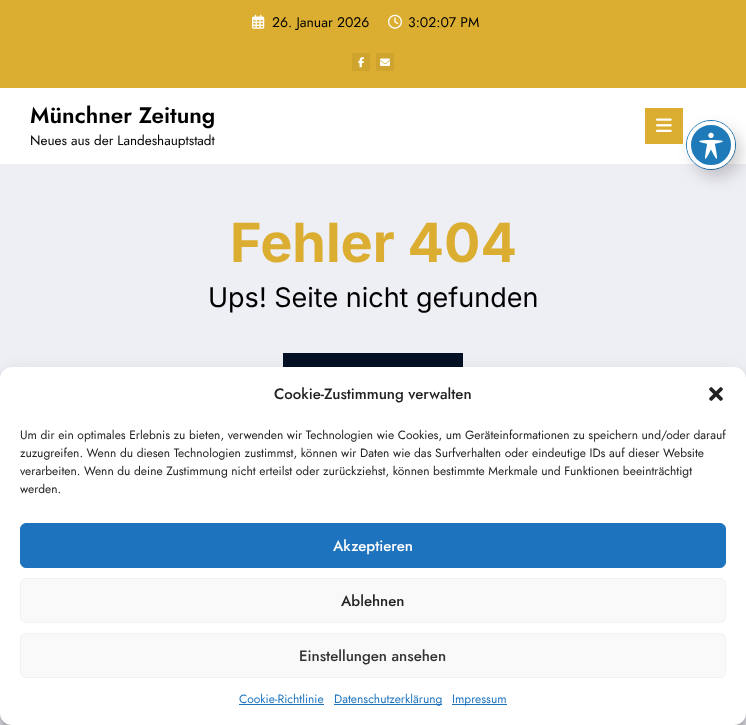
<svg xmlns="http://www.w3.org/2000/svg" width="746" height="725">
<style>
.a{font:14px Jost;fill:#000}
.b{font:600 22.5px Jost;fill:#000}
.c{font:13.5px Jost;fill:#000}
.d{font:bold 54px Inter;fill:#dbae32}
.e{font:27px Inter;fill:#000}
.f{font:500 15px Jost;fill:#222}
.g{font:12px Jost;fill:#222}
.h{font:500 15px Jost;fill:#fff}
.i{font:500 15px Jost;fill:#333}
.j{font:12px Jost;fill:#1e73be}
</style>
<rect width="100%" height="100%" fill="#eeeef5"/>
<path fill="#dbae32" d="M0 0h746v88H0z"/>
<image href="1.png" x="252" y="14" width="13" height="15"/>
<image href="2.png" x="388" y="14" width="14" height="15"/>
<path fill="#cea42f" d="M352 53h18v18H352z"/>
<image href="3.png" x="358" y="57" width="6" height="11"/>
<path fill="#cea42f" d="M376 53h18v18H376z"/>
<image href="4.png" x="380" y="58" width="10" height="8"/>
<path fill="#fff" d="M0 88h746v76H0z"/>
<path fill="#dbae32" d="M645 108h38v36H645z"/>
<image href="5.png" x="656" y="118" width="16" height="14"/>
<image href="6.png" x="707" y="121" width="7" height="1"/>
<path fill="#041124" d="M283 353h180v14H283z"/>
<circle fill="none" stroke="#1e7ab9" cx="711" cy="145" r="24.5"/>
<rect fill="#00000033" filter="blur(8px)" x="693" y="129" width="48" height="48" rx="24"/>
<circle fill="#1e7ab9" stroke="#fff" stroke-width="4" cx="711" cy="145" r="22"/>
<image href="7.png" x="699" y="132" width="24" height="27"/>
<rect fill="#0000003b" filter="blur(3px)" y="373" width="746" height="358" rx="12"/>
<rect fill="#00000030" filter="blur(10px)" y="377" width="746" height="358" rx="12"/>
<rect fill="#fff" y="367" width="746" height="358" rx="12"/>
<image href="8.png" x="709" y="387" width="14" height="14"/>
<rect fill="#1e73be" stroke="#1e73be" x="20.5" y="523.5" width="705" height="44" rx="5.5"/>
<rect fill="#f9f9f9" stroke="#f2f2f2" x="20.5" y="578.5" width="705" height="44" rx="5.5"/>
<rect fill="#f9f9f9" stroke="#f2f2f2" x="20.5" y="633.5" width="705" height="44" rx="5.5"/>
<path fill="#1e73be" d="M239 704h85v1H239z"/>
<path fill="#1e73be" d="M334 704h108v1H334z"/>
<path fill="#1e73be" d="M452 704h55v1H452z"/>
<text class="a" x="272" y="27">26. Januar 2026</text>
<text class="a" x="408" y="27">3:02:07 PM</text>
<text class="b" x="30" y="123">Münchner Zeitung</text>
<text class="c" x="30" y="145">Neues aus der Landeshauptstadt</text>
<text class="d" x="230" y="262">Fehler 404</text>
<text class="e" x="208" y="307">Ups! Seite nicht gefunden</text>
<text class="f" x="274" y="399">Cookie-Zustimmung verwalten</text>
<text class="g" x="20" y="439">Um dir ein optimales Erlebnis zu bieten, verwenden wir Technologien wie Cookies, um Geräteinformationen zu speichern und/oder darauf</text>
<text class="g" x="20" y="457">zuzugreifen. Wenn du diesen Technologien zustimmst, können wir Daten wie das Surfverhalten oder eindeutige IDs auf dieser Website</text>
<text class="g" x="20" y="475">verarbeiten. Wenn du deine Zustimmung nicht erteilst oder zurückziehst, können bestimmte Merkmale und Funktionen beeinträchtigt</text>
<text class="g" x="20" y="493">werden.</text>
<text class="h" x="333" y="551">Akzeptieren</text>
<text class="f" x="341" y="606">Ablehnen</text>
<text class="i" x="299" y="661">Einstellungen ansehen</text>
<text class="j" x="239" y="703">Cookie-Richtlinie</text>
<text class="j" x="334" y="703">Datenschutzerklärung</text>
<text class="j" x="452" y="703">Impressum</text>
</svg>
